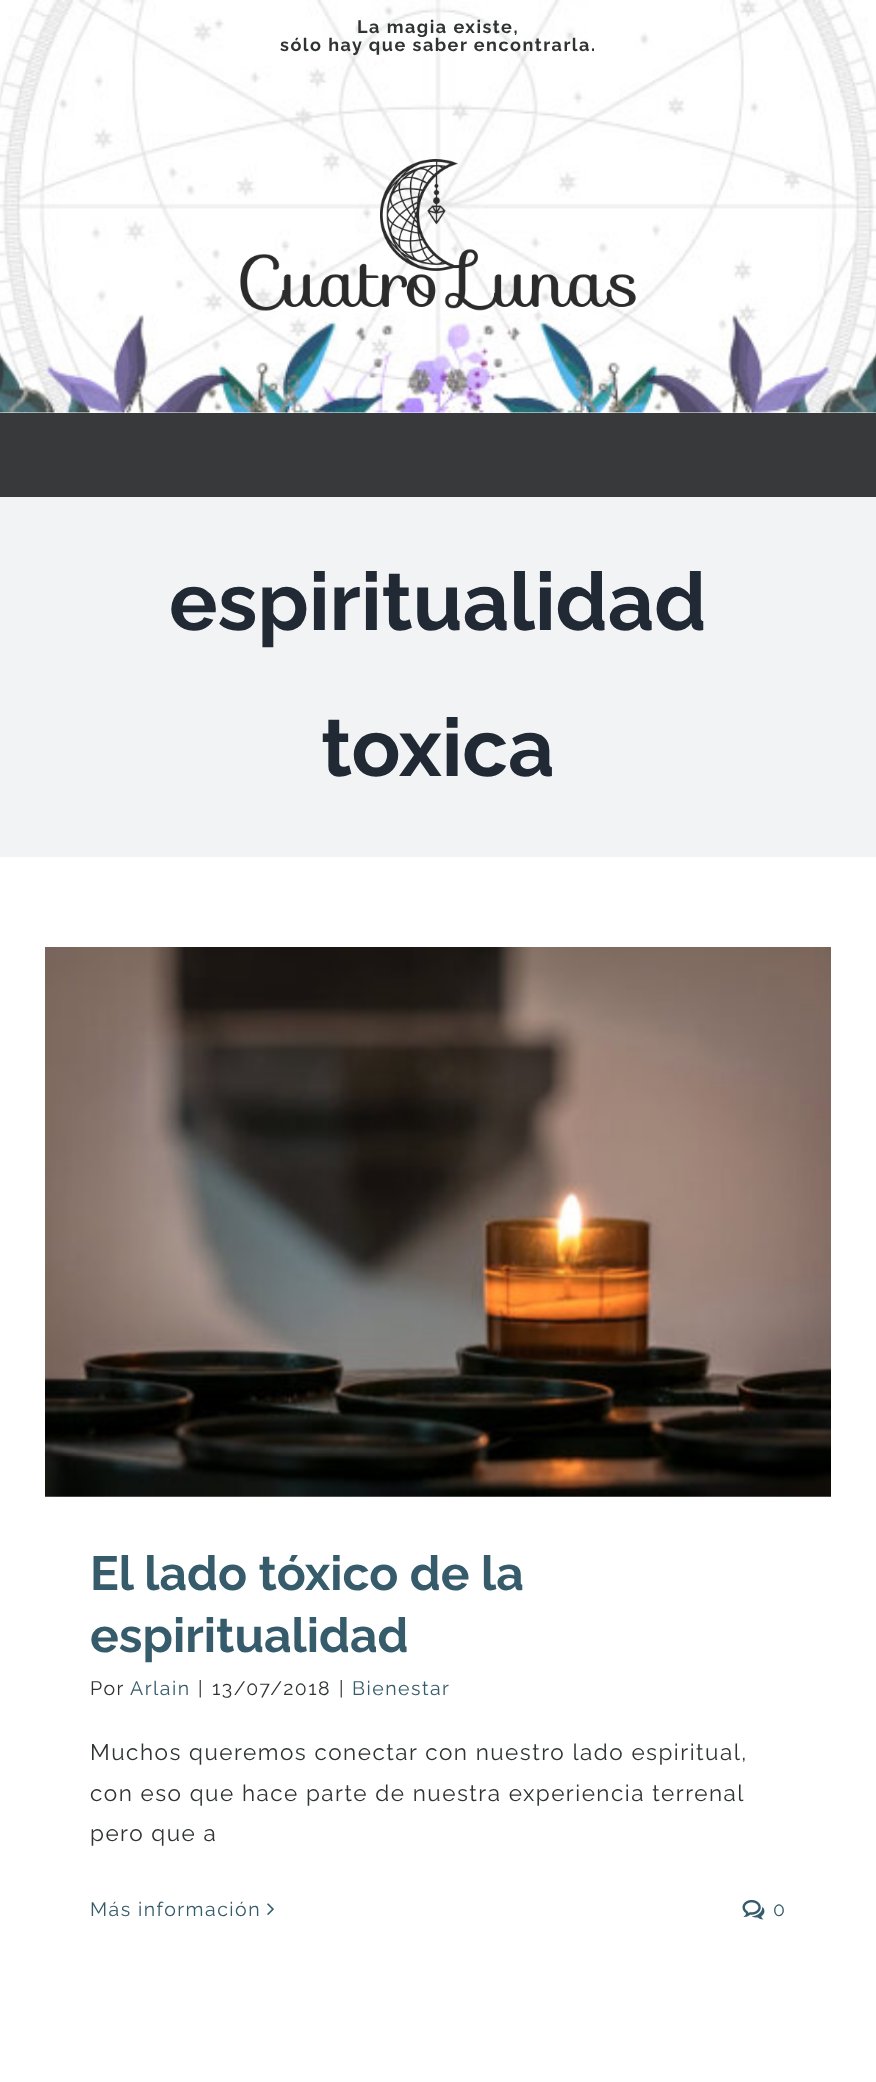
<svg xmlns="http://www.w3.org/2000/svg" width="876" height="2082">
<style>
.a{font:bold 18px Raleway;letter-spacing:1.5px;fill:#2f3331}
.b{font:bold 81px Raleway;fill:#212934}
.c{font:bold 48px Raleway;fill:#365c6c}
.d{font:19.5px Raleway;letter-spacing:1.5px;fill:#2f3331}
.e{font:19.5px Raleway;letter-spacing:1.5px;fill:#365c6c}
.f{font:22.5px Raleway;letter-spacing:1.5px;fill:#2f3331}
</style>
<rect width="100%" height="100%" fill="#fff"/>
<image href="1.png" x="0" y="0" width="876" height="413"/>
<image href="2.png" x="240" y="159" width="396" height="152"/>
<path fill="#38393a" d="M0 413h876v84H0z"/>
<path fill="#f2f3f5" d="M0 497h876v360H0z"/>
<image href="3.png" x="45" y="947" width="786" height="550"/>
<image href="4.png" x="267" y="1903" width="7" height="12"/>
<image href="5.png" x="742" y="1899" width="23" height="21"/>
<text class="a" x="357" y="33">La magia existe,</text>
<text class="a" x="280" y="51">sólo hay que saber encontrarla.</text>
<text class="b" x="169" y="630">espiritualidad</text>
<text class="b" x="321" y="776">toxica</text>
<text class="c" x="90" y="1590">El lado tóxico de la</text>
<text class="c" x="90" y="1652">espiritualidad</text>
<text class="d" x="90" y="1695">Por</text>
<text class="e" x="130" y="1695">Arlain</text>
<text class="d" x="198" y="1695">|</text>
<text class="d" x="212" y="1695">13/07/2018</text>
<text class="d" x="339" y="1695">|</text>
<text class="e" x="352" y="1695">Bienestar</text>
<text class="f" x="90" y="1760">Muchos queremos conectar con nuestro lado espiritual,</text>
<text class="f" x="90" y="1801">con eso que hace parte de nuestra experiencia terrenal</text>
<text class="f" x="90" y="1841">pero que a</text>
<text class="e" x="90" y="1916">Más información</text>
<text class="e" x="773" y="1916">0</text>
</svg>
